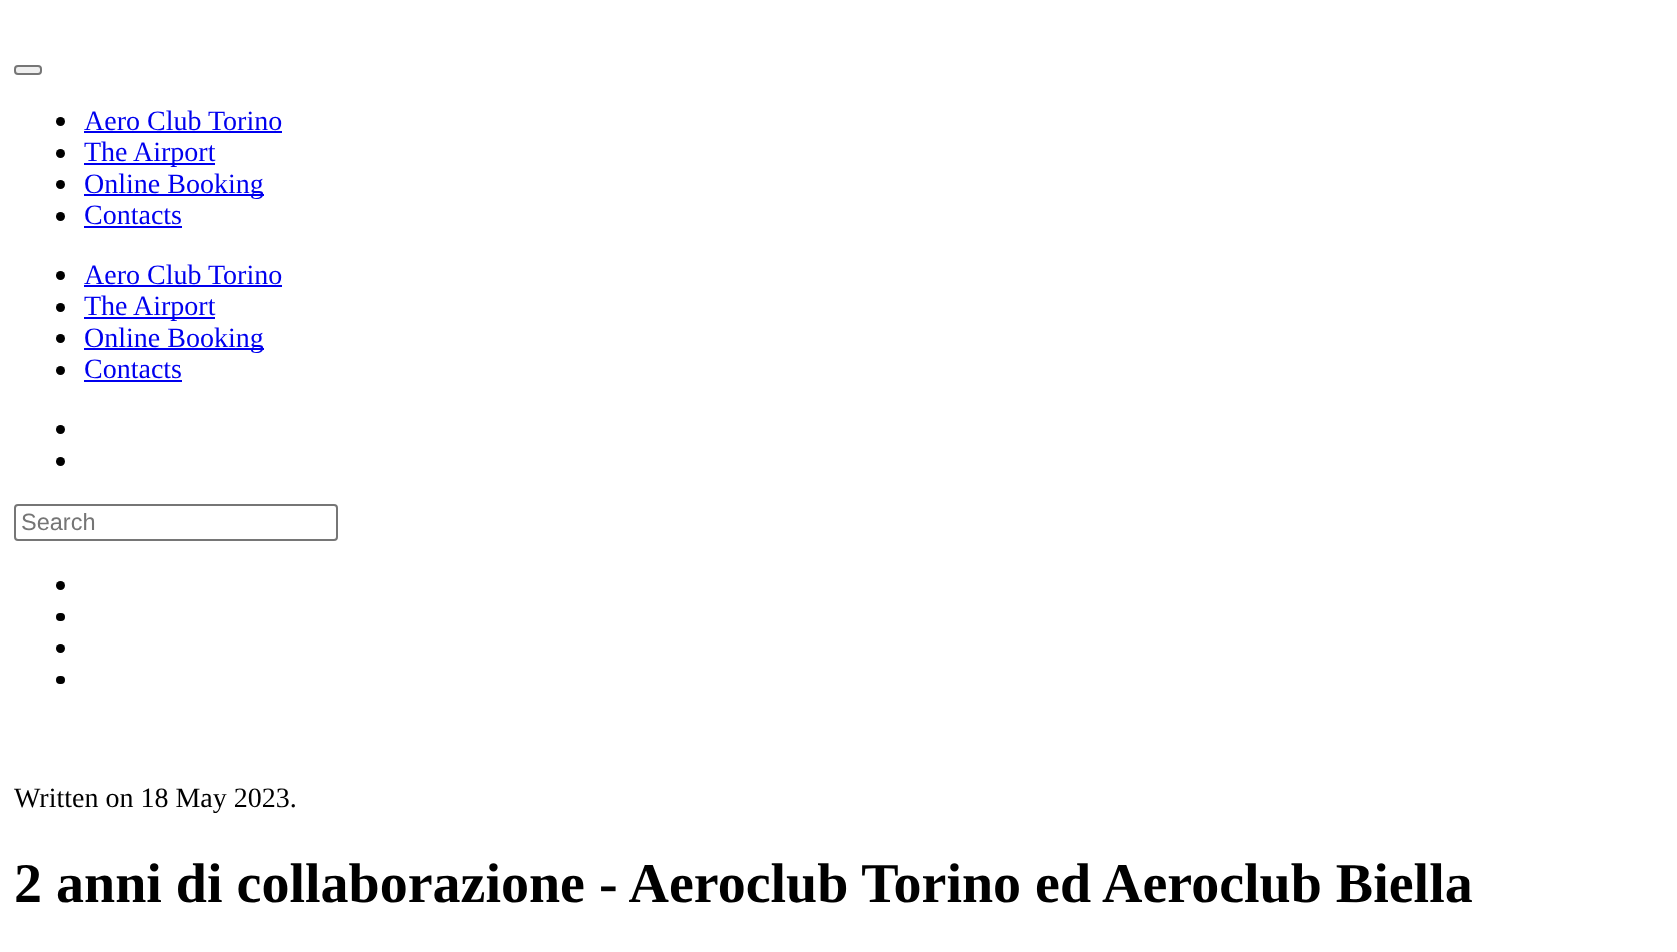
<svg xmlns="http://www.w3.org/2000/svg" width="1677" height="952">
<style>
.a{font:28px Liberation Serif;fill:#00e}
.b{font:23.5px Liberation Sans;fill:#757575}
.c{font:28px Liberation Serif;fill:#000}
.d{font:bold 56px Liberation Serif;fill:#000}
</style>
<rect width="100%" height="100%" fill="#fff"/>
<rect fill="#efefef" stroke="#767676" stroke-width="2" x="15" y="66" width="26" height="8" rx="3"/>
<circle fill="#000" cx="60.5" cy="121.5" r="4.5"/>
<path fill="#00e" d="M84 131h198v2H84z"/>
<circle fill="#000" cx="60.5" cy="153.5" r="4.5"/>
<path fill="#00e" d="M84 163h131v2H84z"/>
<circle fill="#000" cx="60.5" cy="184.5" r="4.5"/>
<path fill="#00e" d="M84 194h180v2H84z"/>
<circle fill="#000" cx="60.5" cy="216.5" r="4.5"/>
<path fill="#00e" d="M84 226h98v2H84z"/>
<circle fill="#000" cx="60.5" cy="275.5" r="4.5"/>
<path fill="#00e" d="M84 285h198v2H84z"/>
<circle fill="#000" cx="60.5" cy="307.5" r="4.5"/>
<path fill="#00e" d="M84 317h131v2H84z"/>
<circle fill="#000" cx="60.5" cy="338.5" r="4.5"/>
<path fill="#00e" d="M84 348h180v2H84z"/>
<circle fill="#000" cx="60.5" cy="370.5" r="4.5"/>
<path fill="#00e" d="M84 380h98v2H84z"/>
<circle fill="#000" cx="60.5" cy="429.5" r="4.5"/>
<circle fill="#000" cx="60.5" cy="461.5" r="4.5"/>
<rect fill="none" stroke="#767676" stroke-width="2" x="15" y="505" width="322" height="35" rx="3"/>
<circle fill="#000" cx="60.5" cy="585.5" r="4.5"/>
<rect fill="#000" x="56" y="613" width="9" height="8" rx="4"/>
<circle fill="#000" cx="60.5" cy="648.5" r="4.5"/>
<rect fill="#000" x="56" y="676" width="9" height="8" rx="4"/>
<text class="a" x="84" y="130">Aero Club Torino</text>
<text class="a" x="84" y="161">The Airport</text>
<text class="a" x="84" y="193">Online Booking</text>
<text class="a" x="84" y="224">Contacts</text>
<text class="a" x="84" y="284">Aero Club Torino</text>
<text class="a" x="84" y="315">The Airport</text>
<text class="a" x="84" y="347">Online Booking</text>
<text class="a" x="84" y="378">Contacts</text>
<text class="b" x="21" y="530">Search</text>
<text class="c" x="14" y="807">Written on 18 May 2023.</text>
<text class="d" x="14" y="902">2 anni di collaborazione - Aeroclub Torino ed Aeroclub Biella</text>
</svg>
